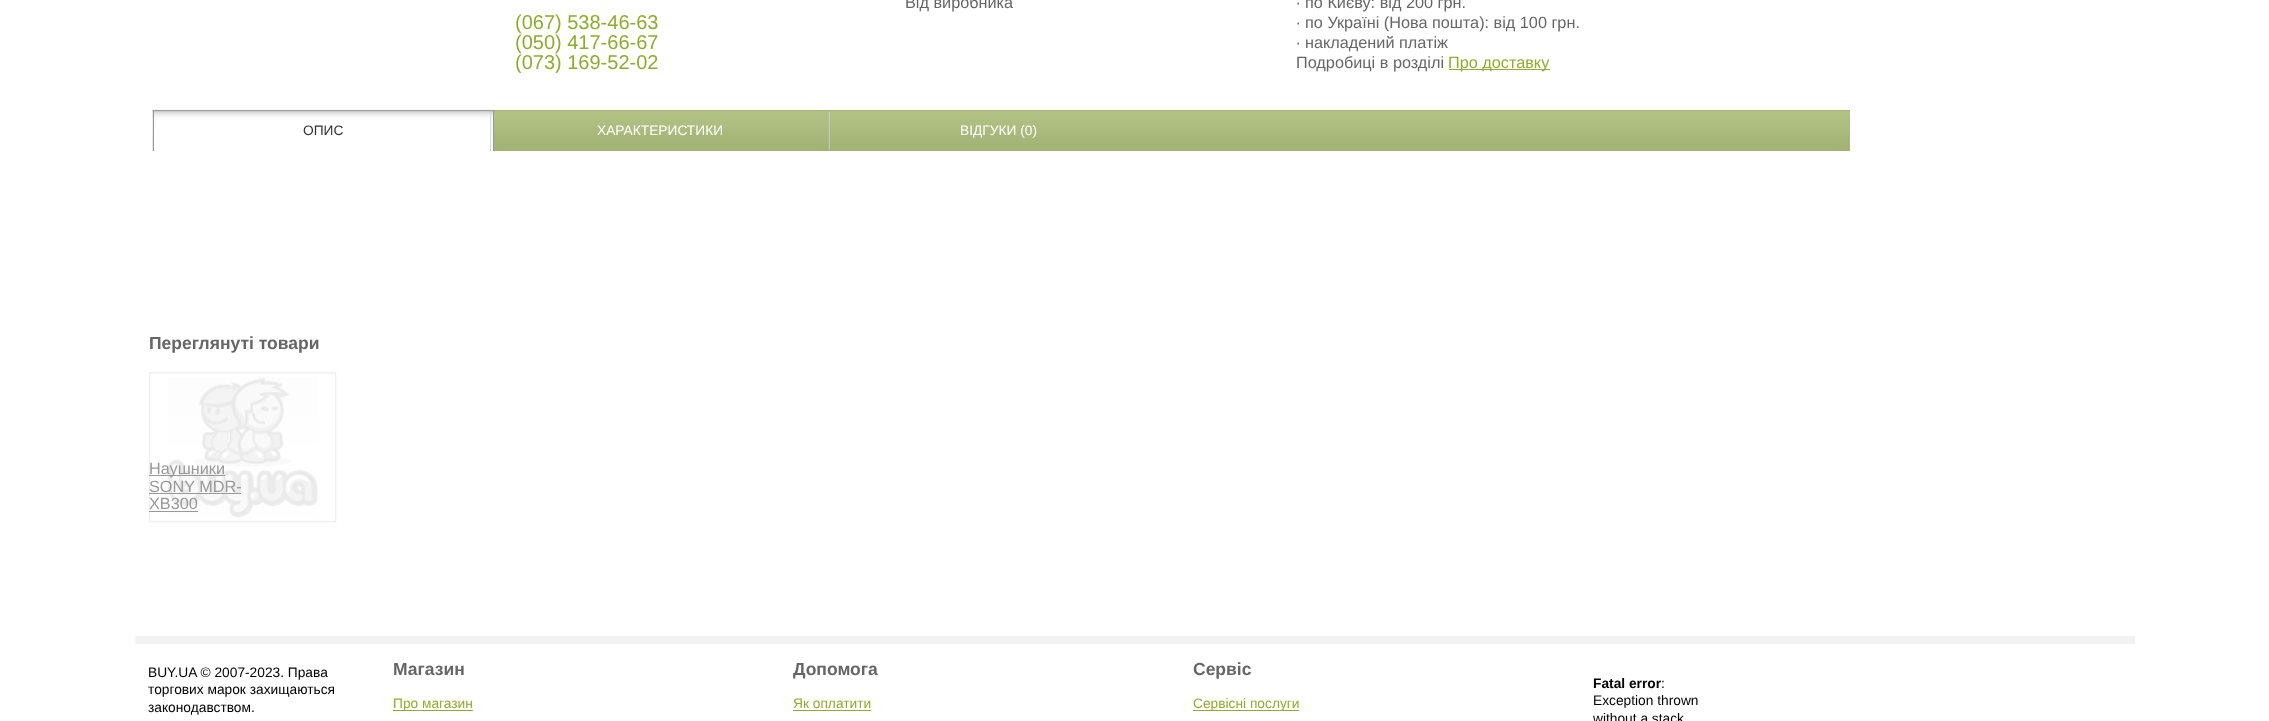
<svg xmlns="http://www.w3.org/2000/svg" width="2269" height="721">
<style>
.a{font:20px Liberation Sans;fill:#8fac2f}
.b{font:16.25px Liberation Sans;fill:#666}
.c{font:16.25px Liberation Sans;fill:#8fac2f}
.d{font:13.75px Liberation Sans;fill:#333}
.e{font:13.75px Liberation Sans;fill:#fff}
.f{font:bold 17.5px Liberation Sans;fill:#666}
.g{font:16.25px Liberation Sans;fill:#999}
.h{font:13.75px Liberation Sans;fill:#000}
.i{font:13.75px Liberation Sans;fill:#8fac2f}
.j{font:bold 13.75px Liberation Sans;fill:#000}
</style>
<defs>
<clipPath id="clip1"><path d="M135 0h1715v73H135z"/></clipPath>
</defs>
<rect width="100%" height="100%" fill="#fff"/>
<path fill="#8fac2f" d="M1449 69h101v1H1449z"/>
<path fill="#a1c63d" d="M494 110h1356v41H494z"/>
<image href="1.png" x="152" y="110" width="1698" height="41"/>
<image href="2.png" x="152" y="110" width="1" height="41"/>
<image href="3.png" x="152" y="109" width="342" height="42"/>
<path fill="#999" d="M493 110h1v41H493z"/>
<path fill="#999" d="M153 110h1v41H153z"/>
<image href="4.png" x="490" y="110" width="2" height="41"/>
<image href="5.png" x="828" y="109" width="2" height="42"/>
<image href="6.png" x="149" y="372" width="188" height="151"/>
<path fill="#999" d="M149 475h76v1H149z"/>
<path fill="#999" d="M149 493h92v1H149z"/>
<path fill="#999" d="M149 511h49v1H149z"/>
<path fill="#f2f2f2" d="M135 636h2000v8H135z"/>
<path fill="#8fac2f" d="M393 710h80v1H393z"/>
<path fill="#8fac2f" d="M793 710h78v1H793z"/>
<path fill="#8fac2f" d="M1193 710h106v1H1193z"/>
<text class="a" x="515" y="29">(067) 538-46-63</text>
<text class="a" x="515" y="49">(050) 417-66-67</text>
<g clip-path="url(#clip1)">
<text class="a" x="515" y="69">(073) 169-52-02</text>
</g>
<text class="b" x="905" y="8">Від виробника</text>
<text class="b" x="1296" y="8">∙ по Києву: від 200 грн.</text>
<text class="b" x="1296" y="28">∙ по Україні (Нова пошта): від 100 грн.</text>
<text class="b" x="1296" y="48">∙ накладений платіж</text>
<text class="b" x="1296" y="68">Подробиці в розділі</text>
<text class="c" x="1448" y="68">Про доставку</text>
<text class="d" x="303" y="135">ОПИС</text>
<text class="e" x="597" y="135">ХАРАКТЕРИСТИКИ</text>
<text class="e" x="960" y="135">ВІДГУКИ (0)</text>
<text class="f" x="149" y="349">Переглянуті товари</text>
<text class="g" x="149" y="474">Наушники</text>
<text class="g" x="149" y="492">SONY MDR-</text>
<text class="g" x="149" y="509">XB300</text>
<text class="h" x="148" y="677">BUY.UA © 2007-2023. Права</text>
<text class="h" x="148" y="694">торгових марок захищаються</text>
<text class="h" x="148" y="712">законодавством.</text>
<text class="f" x="393" y="675">Магазин</text>
<text class="i" x="393" y="708">Про магазин</text>
<text class="f" x="793" y="675">Допомога</text>
<text class="i" x="793" y="708">Як оплатити</text>
<text class="f" x="1193" y="675">Сервіс</text>
<text class="i" x="1193" y="708">Сервісні послуги</text>
<text class="j" x="1593" y="688">Fatal error</text>
<text class="h" x="1661" y="688">:</text>
<text class="h" x="1593" y="705">Exception thrown</text>
<text class="h" x="1593" y="723">without a stack</text>
</svg>
